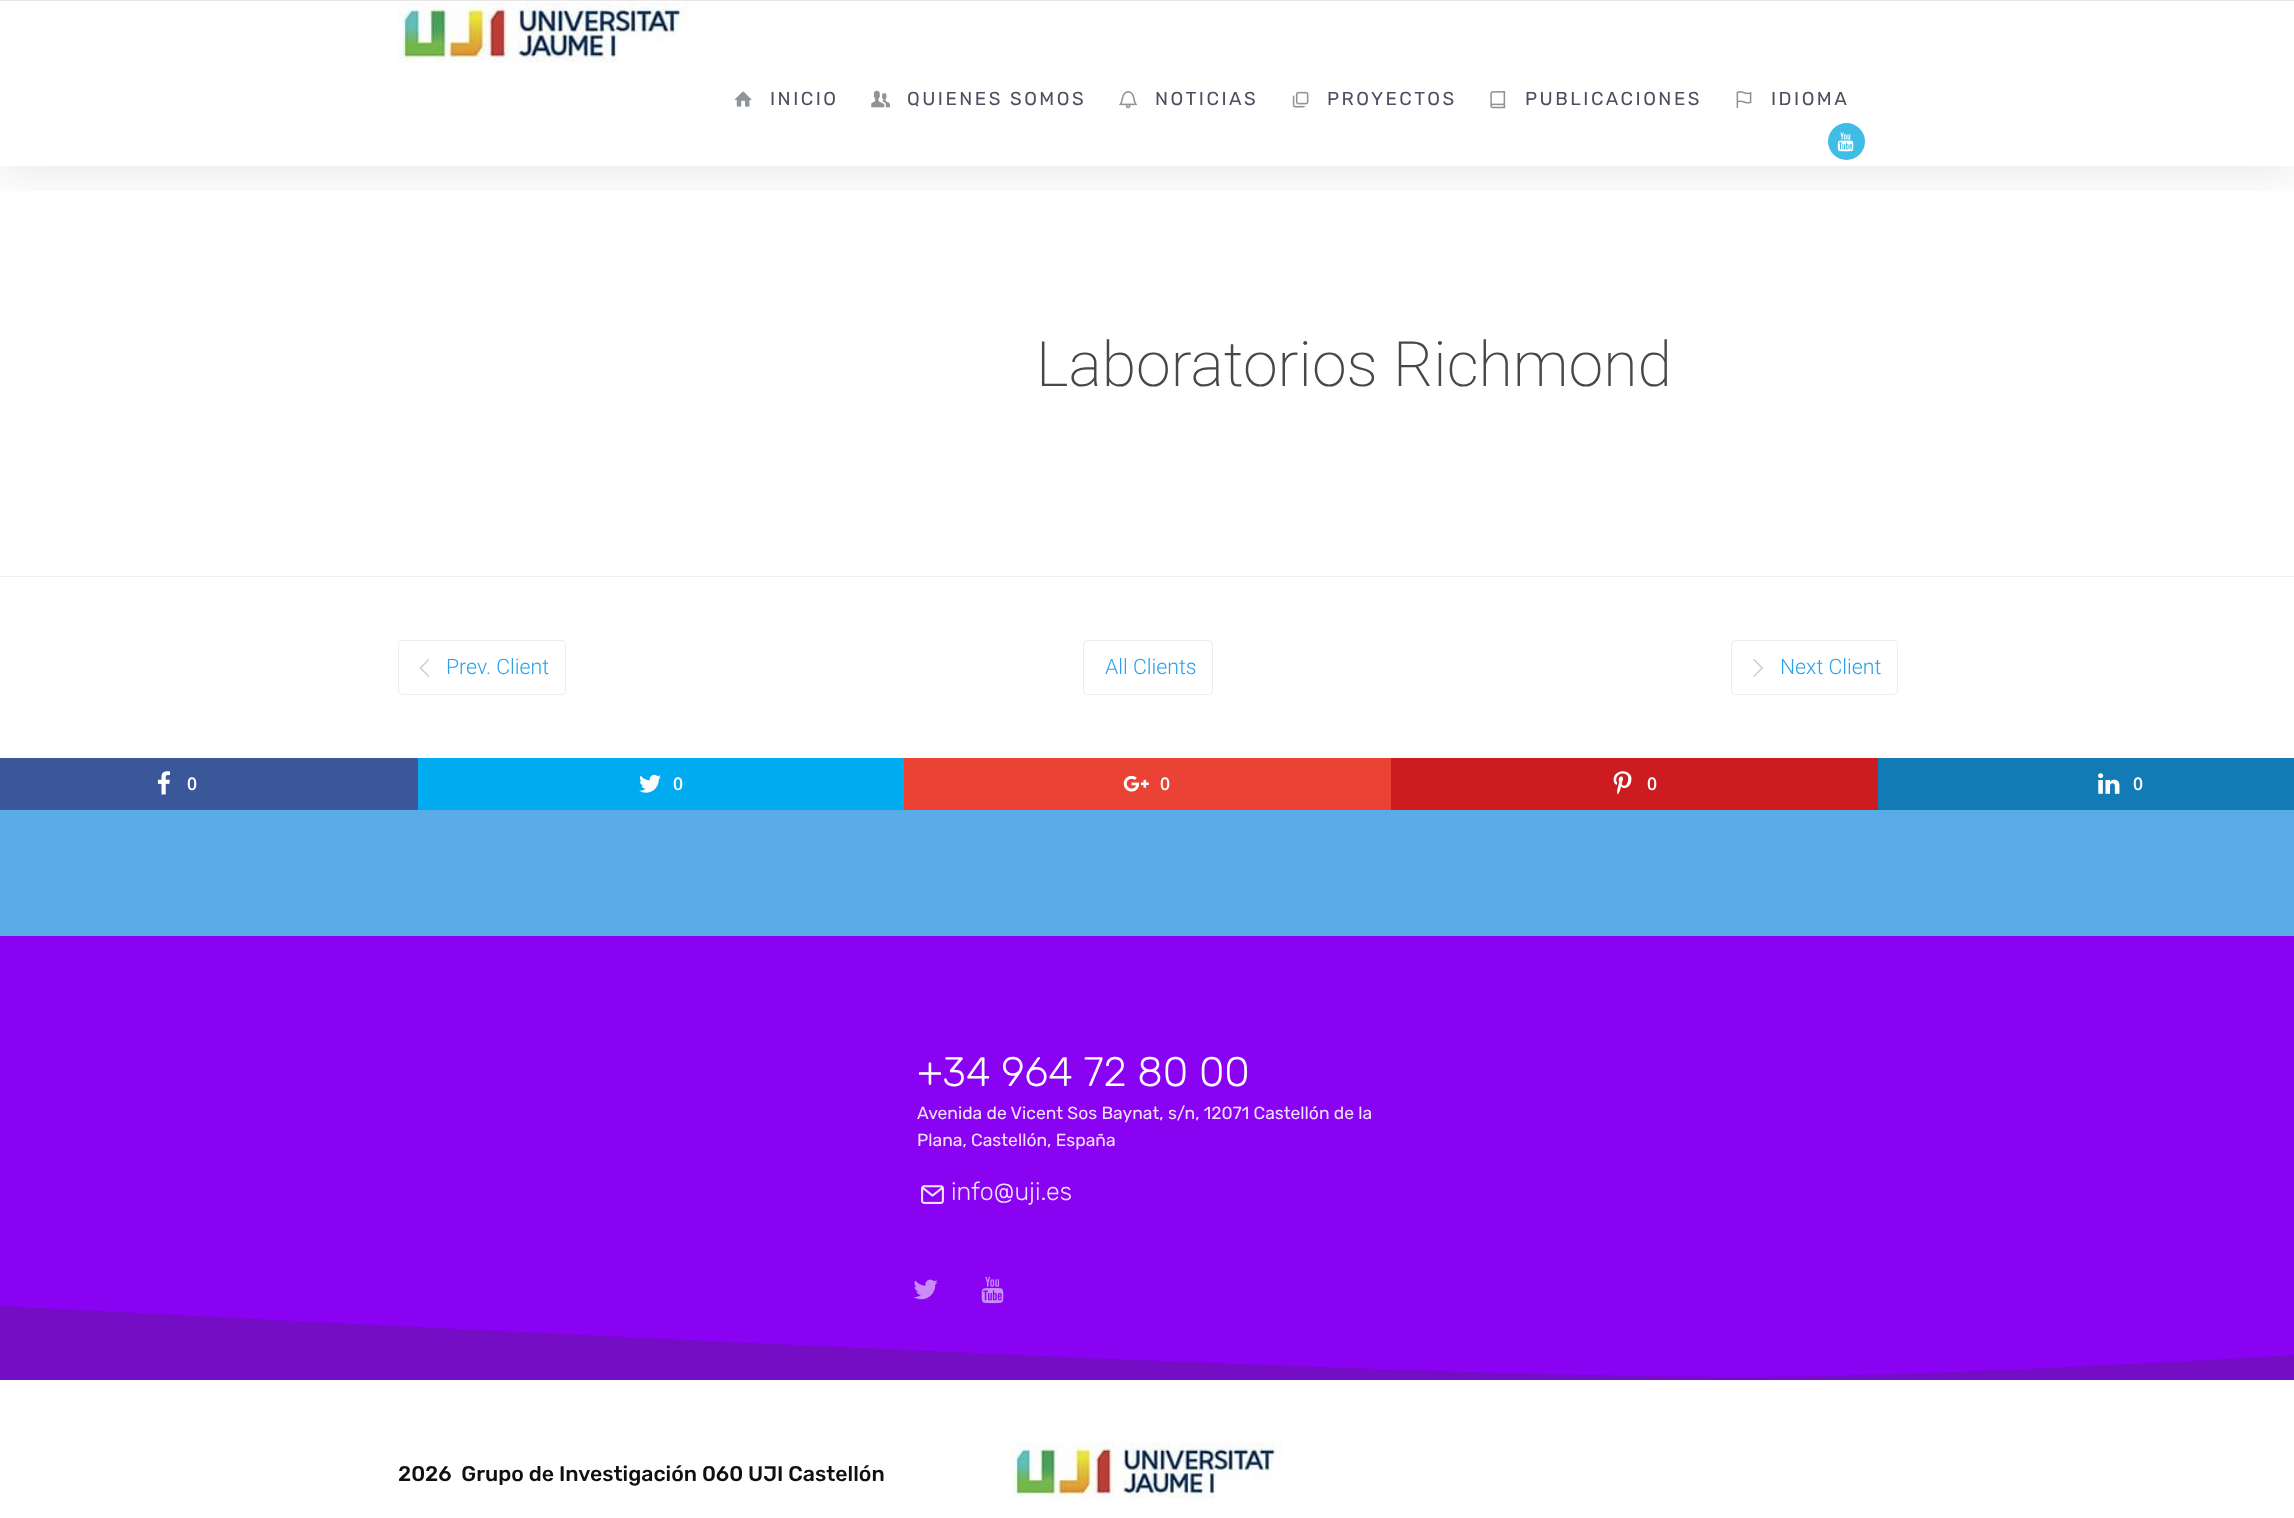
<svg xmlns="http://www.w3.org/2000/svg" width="2294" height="1518">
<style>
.a{font:18.75px Rubik;letter-spacing:2.5px;fill:#514d60}
.b{font:200 62.5px Roboto;fill:#46484b}
.c{font:300 21.25px Roboto;fill:#2aa0ef}
.d{font:600 17.5px Open Sans;fill:#fff}
.e{font:300 41.25px Rubik;fill:#fff}
.f{font:17.5px Rubik;fill:#f1e1fd}
.g{font:300 25px Rubik;fill:#f1e1fd}
.h{font:500 21.25px Rubik;fill:#101011}
</style>
<defs>
<clipPath id="clip1"><path d="M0 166h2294v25H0z"/></clipPath>
</defs>
<rect width="100%" height="100%" fill="#fff"/>
<g clip-path="url(#clip1)">
<path fill="#0000001a" filter="blur(25px)" d="M0 4h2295v166H0z"/>
</g>
<path fill="#e6e6e6" d="M0 0h2294v1H0z"/>
<image href="1.png" x="397" y="2" width="291" height="62"/>
<image href="2.png" x="734" y="91" width="18" height="16"/>
<image href="3.png" x="871" y="90" width="19" height="18"/>
<image href="4.png" x="1119" y="91" width="19" height="18"/>
<image href="5.png" x="1292" y="91" width="17" height="17"/>
<image href="6.png" x="1490" y="91" width="16" height="18"/>
<image href="7.png" x="1736" y="91" width="16" height="18"/>
<circle fill="#40bde6" cx="1846.5" cy="141.5" r="18.5"/>
<image href="8.png" x="1837" y="132" width="17" height="20"/>
<path fill="#eee" d="M0 576h2294v1H0z"/>
<rect fill="none" stroke="#efecec" x="398.5" y="640.5" width="167" height="54" rx="3.5"/>
<image href="9.png" x="419" y="658" width="11" height="19"/>
<rect fill="none" stroke="#efecec" x="1083.5" y="640.5" width="129" height="54" rx="3.5"/>
<rect fill="none" stroke="#efecec" x="1731.5" y="640.5" width="166" height="54" rx="3.5"/>
<image href="10.png" x="1753" y="659" width="10" height="18"/>
<path fill="#3a579a" d="M0 758h418v52H0z"/>
<image href="11.png" x="157" y="771" width="13" height="24"/>
<path fill="#00abf0" d="M418 758h486v52H418z"/>
<image href="12.png" x="639" y="774" width="22" height="19"/>
<path fill="#ea4335" d="M904 758h487v52H904z"/>
<image href="13.png" x="1123" y="775" width="26" height="17"/>
<path fill="#cd1c1f" d="M1391 758h487v52H1391z"/>
<image href="14.png" x="1613" y="771" width="19" height="24"/>
<path fill="#127bb6" d="M1878 758h416v52H1878z"/>
<image href="15.png" x="2098" y="773" width="22" height="21"/>
<path fill="#59ace7" d="M0 810h2294v126H0z"/>
<path fill="#8a02f2" d="M0 936h2294v441H0z"/>
<image href="16.png" x="921" y="1185" width="23" height="19"/>
<image href="17.png" x="913" y="1279" width="25" height="21"/>
<image href="18.png" x="981" y="1276" width="23" height="28"/>
<path fill="#740dc3" d="M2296 1355c-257 15-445 22-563 22c-244 0-822-24-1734-71v75h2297z"/>
<path fill="#fff" d="M0 1380h2294v1H0z"/>
<image href="19.png" x="1010" y="1442" width="272" height="58"/>
<text class="a" x="770" y="105">INICIO</text>
<text class="a" x="907" y="105">QUIENES SOMOS</text>
<text class="a" x="1155" y="105">NOTICIAS</text>
<text class="a" x="1327" y="105">PROYECTOS</text>
<text class="a" x="1525" y="105">PUBLICACIONES</text>
<text class="a" x="1771" y="105">IDIOMA</text>
<text class="b" x="1036" y="386">Laboratorios Richmond</text>
<text class="c" x="446" y="674">Prev. Client</text>
<text class="c" x="1105" y="674">All Clients</text>
<text class="c" x="1780" y="674">Next Client</text>
<text class="d" x="187" y="790">0</text>
<text class="d" x="673" y="790">0</text>
<text class="d" x="1160" y="790">0</text>
<text class="d" x="1647" y="790">0</text>
<text class="d" x="2133" y="790">0</text>
<text class="e" x="917" y="1086">+34 964 72 80 00</text>
<text class="f" x="917" y="1119">Avenida de Vicent Sos Baynat, s/n, 12071 Castellón de la</text>
<text class="f" x="917" y="1146">Plana, Castellón, España</text>
<text class="g" x="951" y="1200">info@uji.es</text>
<text class="h" xml:space="preserve" x="398" y="1481">2026  Grupo de Investigación 060 UJI Castellón</text>
</svg>
